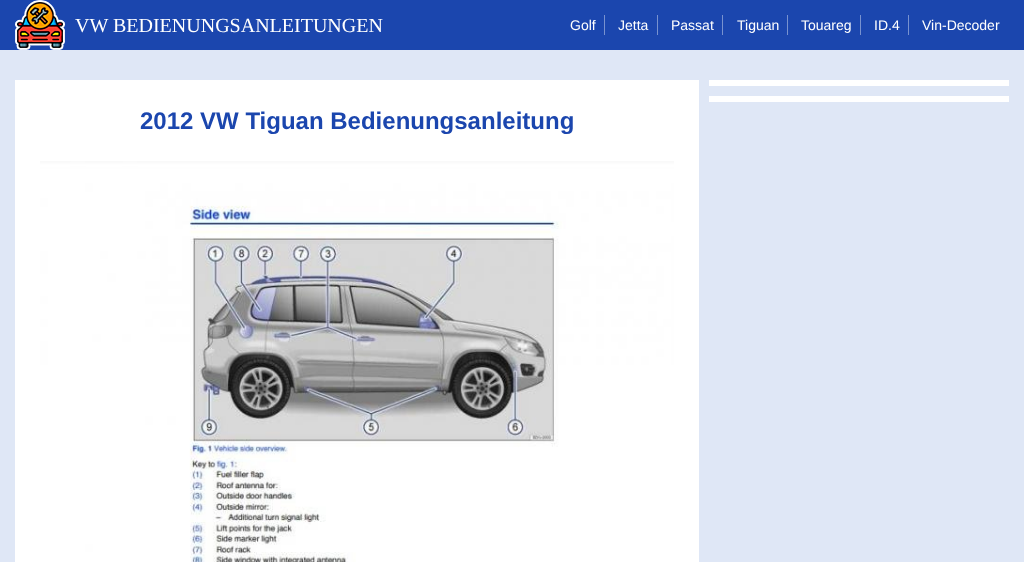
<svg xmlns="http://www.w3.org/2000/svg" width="1024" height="562">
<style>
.a{font:20px Liberation Serif;fill:#fff}
.b{font:14px Liberation Sans;fill:#fff}
.c{font:bold 24px Liberation Sans;fill:#1b46ae}
</style>
<rect width="100%" height="100%" fill="#dfe7f6"/>
<path fill="#1b46ae" d="M0 0h1024v50H0z"/>
<image href="1.png" x="15" y="0" width="50" height="50"/>
<path fill="#7892cf" d="M604 15h1v20H604z"/>
<path fill="#7892cf" d="M657 15h1v20H657z"/>
<path fill="#7892cf" d="M722 15h1v20H722z"/>
<path fill="#7892cf" d="M787 15h1v20H787z"/>
<path fill="#7892cf" d="M860 15h1v20H860z"/>
<path fill="#7892cf" d="M908 15h1v20H908z"/>
<path fill="#fff" d="M709 80h300v6H709z"/>
<path fill="#fff" d="M709 96h300v6H709z"/>
<path fill="#fff" d="M15 80h684v482H15z"/>
<image href="2.png" x="40" y="161" width="634" height="401"/>
<text class="a" x="75" y="32">VW BEDIENUNGSANLEITUNGEN</text>
<text class="b" x="570" y="30">Golf</text>
<text class="b" x="618" y="30">Jetta</text>
<text class="b" x="671" y="30">Passat</text>
<text class="b" x="737" y="30">Tiguan</text>
<text class="b" x="801" y="30">Touareg</text>
<text class="b" x="874" y="30">ID.4</text>
<text class="b" x="922" y="30">Vin-Decoder</text>
<text class="c" x="140" y="129">2012 VW Tiguan Bedienungsanleitung</text>
</svg>
